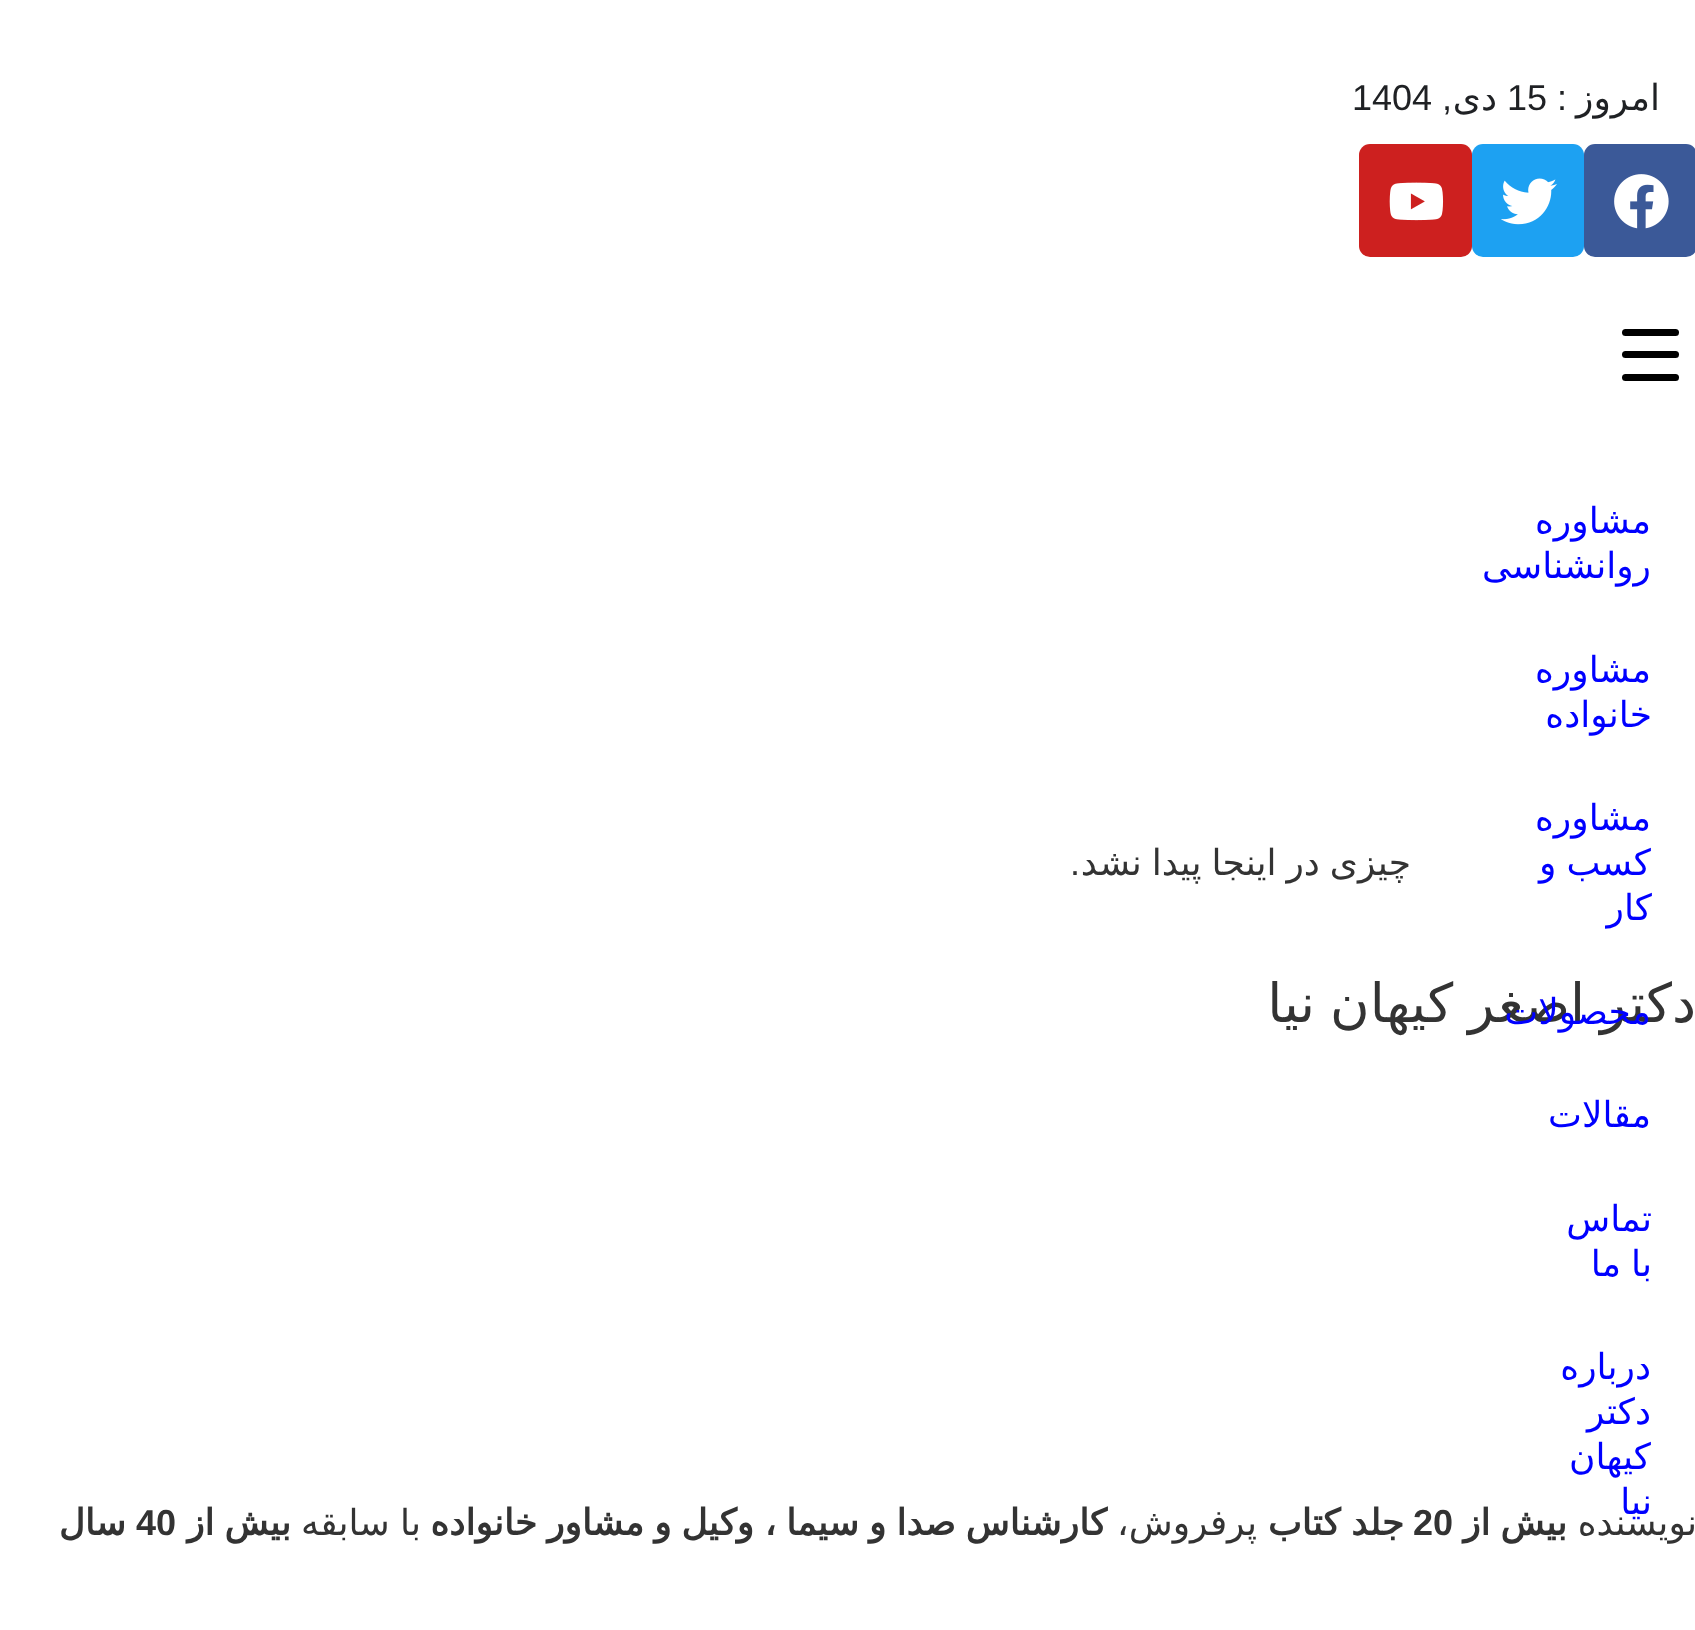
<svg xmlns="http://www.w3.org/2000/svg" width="1695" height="1630">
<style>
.a{font:36px DejaVu Sans;direction:rtl;fill:#1f2124}
.b{font:36px Liberation Sans;direction:rtl;fill:#1f2124}
.c{font:36px Liberation Sans;fill:#1f2124}
.d{font:36px DejaVu Sans;direction:rtl;fill:#00f}
.e{font:36px DejaVu Sans;direction:rtl;fill:#333}
.f{font:36px Liberation Sans;direction:rtl;fill:#333}
.g{font:54px DejaVu Sans;direction:rtl;fill:#333}
.h{font:bold 36px DejaVu Sans;direction:rtl;fill:#333}
.i{font:bold 36px Liberation Sans;fill:#333}
</style>
<rect width="100%" height="100%" fill="#fff"/>
<rect fill="#3b5998" x="1584" y="144" width="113" height="113" rx="11"/>
<image href="1.png" x="1614" y="174" width="55" height="55"/>
<rect fill="#1da1f2" x="1472" y="144" width="112" height="113" rx="11"/>
<image href="2.png" x="1501" y="178" width="56" height="47"/>
<rect fill="#cd201f" x="1359" y="144" width="113" height="113" rx="11"/>
<image href="3.png" x="1389" y="182" width="55" height="39"/>
<rect fill="#000" x="1622" y="329" width="57" height="7" rx="3.5"/>
<rect fill="#000" x="1622" y="351" width="57" height="7" rx="3.5"/>
<rect fill="#000" x="1622" y="374" width="57" height="7" rx="3.5"/>
<text class="a" x="1660" y="110">امروز</text>
<text class="b" x="1567" y="110">:</text>
<text class="c" x="1507" y="110">15</text>
<text class="a" x="1497" y="110">دی</text>
<text class="b" x="1452" y="110">,</text>
<text class="c" x="1352" y="110">1404</text>
<text class="d" x="1651" y="533">مشاوره</text>
<text class="d" x="1651" y="578">روانشناسی</text>
<text class="d" x="1651" y="682">مشاوره</text>
<text class="d" x="1652" y="727">خانواده</text>
<text class="d" x="1651" y="830">مشاوره</text>
<text class="d" x="1651" y="875" word-spacing="-1.5">کسب و</text>
<text class="d" x="1652" y="920">کار</text>
<text class="d" x="1651" y="1127">مقالات</text>
<text class="d" x="1652" y="1231">تماس</text>
<text class="d" x="1652" y="1276" word-spacing="-1.5">با ما</text>
<text class="d" x="1651" y="1379">درباره</text>
<text class="d" x="1651" y="1424">دکتر</text>
<text class="d" x="1651" y="1469">کیهان</text>
<text class="d" x="1652" y="1514">نیا</text>
<text class="e" x="1411" y="875" word-spacing="-1.5">چیزی در اینجا پیدا نشد</text>
<text class="f" x="1080" y="875">.</text>
<text class="g" x="1696" y="1022" word-spacing="-2">دکتر اصغر کیهان نیا</text>
<text class="d" x="1651" y="1024">محصولات</text>
<text class="e" x="1697" y="1535">نویسنده</text>
<text class="h" x="1567" y="1535" word-spacing="-1.5">بیش از</text>
<text class="i" x="1413" y="1535">20</text>
<text class="h" x="1404" y="1535" word-spacing="-1">جلد کتاب</text>
<text class="e" x="1257" y="1535">پرفروش،</text>
<text class="h" x="1107" y="1535" word-spacing="-1.5">کارشناس صدا و سیما ،</text>
<text class="h" x="754" y="1535" word-spacing="-1.5">وکیل و مشاور خانواده</text>
<text class="e" x="421" y="1535" word-spacing="-1">با سابقه</text>
<text class="h" x="291" y="1535" word-spacing="-1.5">بیش از</text>
<text class="i" x="136" y="1535">40</text>
<text class="h" x="126" y="1535">سال</text>
</svg>
